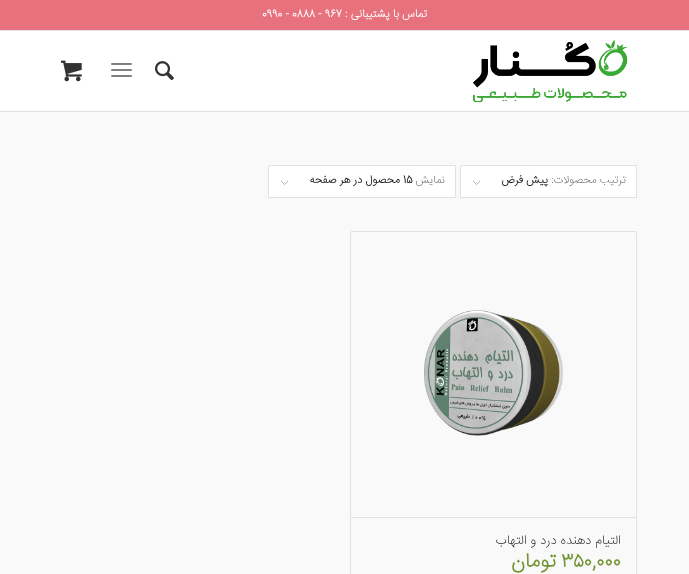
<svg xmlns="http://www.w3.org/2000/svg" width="689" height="574">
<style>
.a{font:bold 11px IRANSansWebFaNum;direction:rtl;fill:#fff}
.b{font:bold 11px IRANSansWebFaNum;fill:#fff}
.c{font:200 11px IRANSansWebFaNum;direction:rtl;fill:#616161}
.d{font:bold 11px IRANSansWebFaNum;direction:rtl;fill:#222}
.e{font:bold 11px IRANSansWebFaNum;fill:#222}
.f{font:200 13px IRANSansWebFaNum;direction:rtl;fill:#222}
.g{font:bold 20px IRANSansWebFaNum;fill:#719430}
.h{font:bold 20px IRANSansWebFaNum;direction:rtl;fill:#719430}
</style>
<rect width="100%" height="100%" fill="#f9f9f9"/>
<path fill="#e7717d" d="M0 0h689v30H0z"/>
<path fill="#e1e1e1" d="M0 30h689v1H0z"/>
<path fill="#fff" d="M0 31h689v80H0z"/>
<path fill="#e1e1e1" d="M0 111h689v1H0z"/>
<image href="1.png" x="472" y="40" width="156" height="63"/>
<image href="2.png" x="155" y="61" width="19" height="20"/>
<rect fill="#808080" x="111" y="69" width="21" height="2" rx="1"/>
<rect fill="#808080" x="111" y="63" width="21" height="2" rx="1"/>
<rect fill="#808080" x="111" y="75" width="21" height="2" rx="1"/>
<image href="3.png" x="61" y="60" width="21" height="22"/>
<path fill="#fff" d="M461 166h175v31H461z"/>
<image href="4.png" x="473" y="181" width="7" height="4"/>
<path fill="none" stroke="#e1e1e1" d="M460.5 165.5h176v32H460.5z"/>
<path fill="#fff" d="M269 166h186v31H269z"/>
<image href="4.png" x="281" y="181" width="7" height="4"/>
<path fill="none" stroke="#e1e1e1" d="M268.5 165.5h187v32H268.5z"/>
<rect fill="none" stroke="#e1e1e1" x="350.5" y="231.5" width="286" height="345" rx="1.5"/>
<image href="5.png" x="424" y="310" width="139" height="126"/>
<path fill="#e1e1e1" d="M351 517h285v1H351z"/>
<text class="a" x="427" y="17">تماس با پشتیبانی :</text>
<text class="b" x="262" y="17">0990 - 0888 - 967</text>
<text class="c" x="626" y="183">ترتیب محصولات:</text>
<text class="d" x="548" y="183">پیش فرض</text>
<text class="c" x="445" y="183">نمایش</text>
<text class="e" x="403" y="183">15</text>
<text class="d" x="400" y="183">محصول در هر صفحه</text>
<text class="f" x="621" y="544">التیام دهنده درد و التهاب</text>
<text class="g" x="561" y="567">۳۵۰,۰۰۰</text>
<text class="h" x="556" y="567">تومان</text>
</svg>
